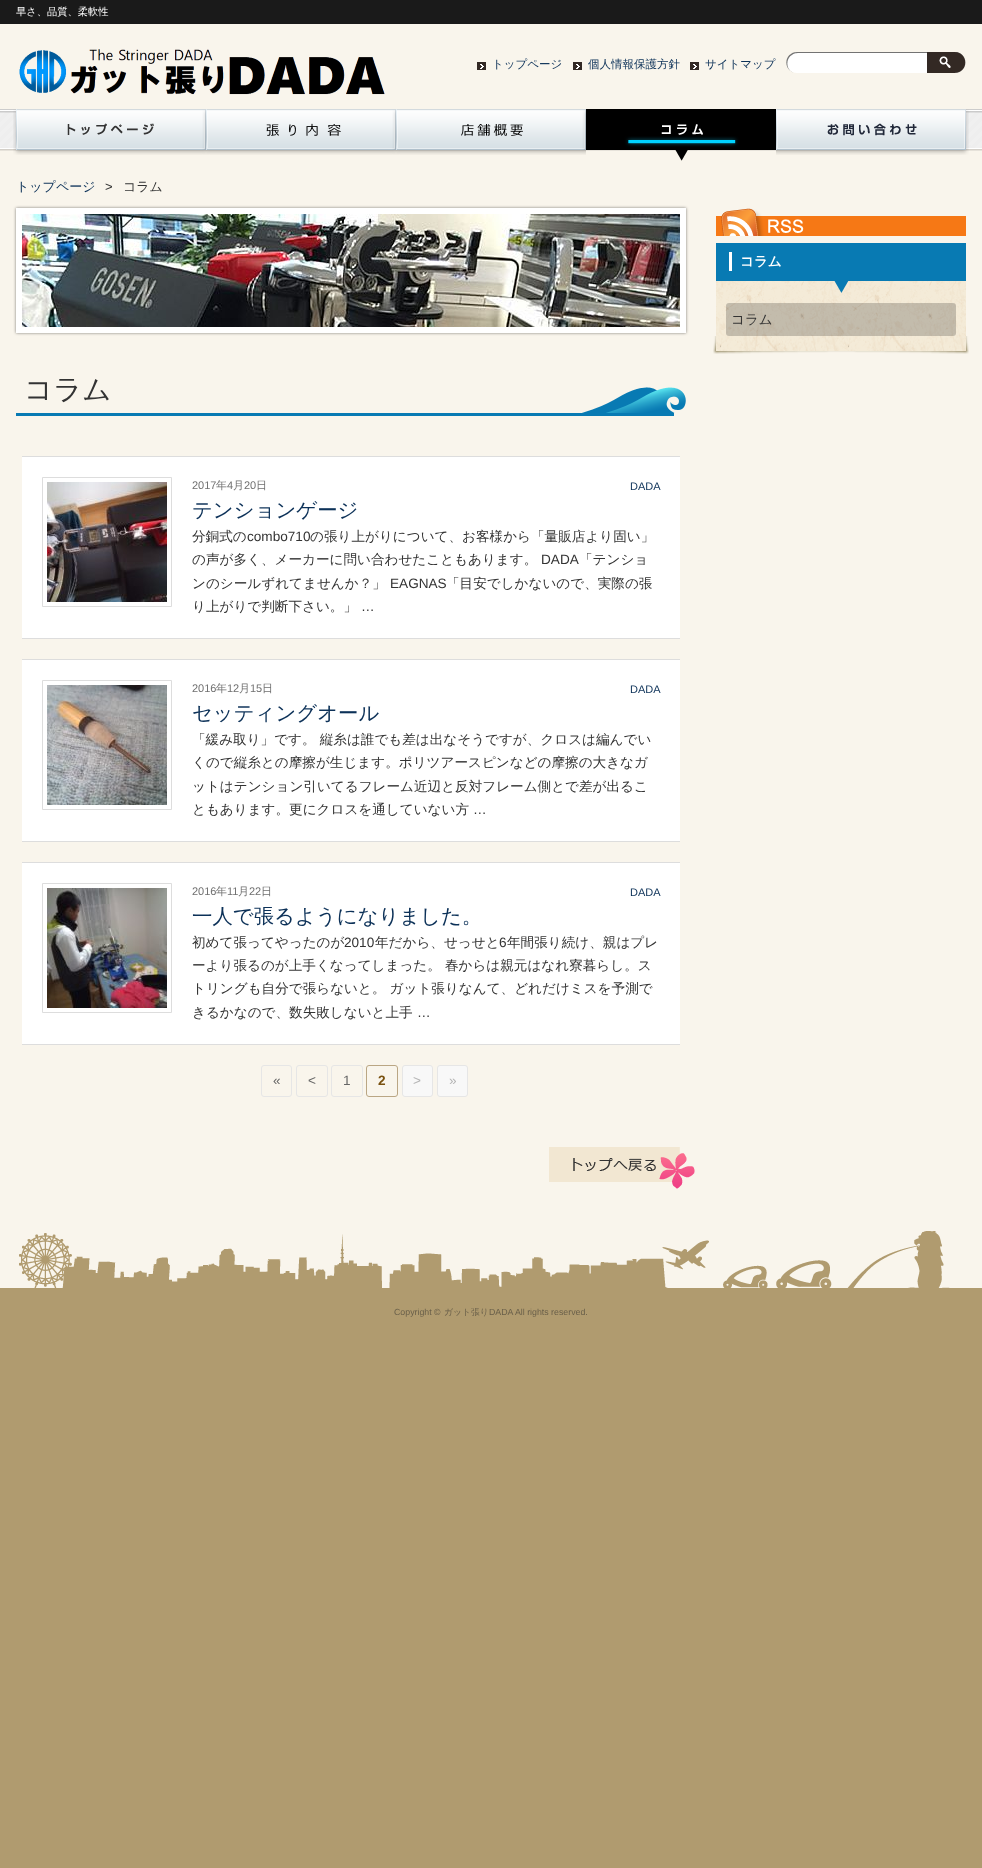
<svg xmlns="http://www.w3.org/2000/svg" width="982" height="1868">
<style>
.a{font:500 10.25px WenQuanYi Zen Hei;fill:#fff}
.b{font:500 11.5px WenQuanYi Zen Hei;fill:#0c3158}
.c{font:500 13px WenQuanYi Zen Hei;fill:#0c3158}
.d{font:13px Liberation Sans;letter-spacing:10px;fill:#333}
.e{font:500 13px WenQuanYi Zen Hei;fill:#333}
.f{font:bold 13.6px WenQuanYi Zen Hei;fill:#fff}
.g{font:500 13.6px WenQuanYi Zen Hei;fill:#333}
.h{font:500 28.5px WenQuanYi Zen Hei;fill:#333}
.i{font:11px Liberation Sans;fill:#707070}
.j{font:500 11px WenQuanYi Zen Hei;fill:#707070}
.k{font:11px Liberation Sans;fill:#0c3158}
.l{font:500 20.4px WenQuanYi Zen Hei;fill:#0c3158}
.m{font:13.6px Liberation Sans;fill:#333}
.n{font:13.6px Liberation Sans;fill:#666}
.o{font:bold 13.6px Liberation Sans;fill:#79510f}
.p{font:13.6px Liberation Sans;fill:#b4b4b4}
.q{font:8.8px Liberation Sans;fill:#695f49}
.r{font:500 8.8px WenQuanYi Zen Hei;fill:#695f49}
</style>
<rect width="100%" height="100%" fill="#b09b6f"/>
<path fill="#f9f5ec" d="M0 24h982v1264H0z"/>
<image href="1.png" x="0" y="109" width="982" height="42"/>
<path fill="#1a1a1a" d="M0 0h982v24H0z"/>
<image href="2.png" x="19" y="49" width="366" height="46"/>
<image href="3.png" x="477" y="62" width="9" height="8"/>
<image href="3.png" x="573" y="62" width="9" height="8"/>
<image href="3.png" x="690" y="62" width="9" height="8"/>
<image href="4.png" x="786" y="52" width="141" height="21"/>
<image href="5.png" x="927" y="52" width="39" height="21"/>
<image href="6.png" x="13" y="109" width="193" height="46"/>
<image href="7.png" x="206" y="109" width="190" height="46"/>
<image href="8.png" x="396" y="109" width="190" height="46"/>
<image href="9.png" x="586" y="109" width="190" height="52"/>
<image href="10.png" x="776" y="109" width="193" height="46"/>
<image href="11.png" x="716" y="208" width="250" height="28"/>
<image href="12.png" x="713" y="336" width="256" height="18"/>
<image href="14.png" x="716" y="281" width="250" height="70"/>
<image href="13.png" x="716" y="243" width="250" height="50"/>
<rect fill="#00000033" x="726" y="303" width="230" height="33" rx="3"/>
<path fill="#00000080" filter="blur(1.5px)" d="M16 208h670v125H16z"/>
<path fill="#fff" d="M16 208h670v125H16z"/>
<image href="15.png" x="22" y="214" width="658" height="113"/>
<image href="16.png" x="16" y="387" width="670" height="29"/>
<path fill="#fff" d="M22 457h658v181H22z"/>
<path fill="#ddd" d="M22 456h658v1H22z"/>
<path fill="#ddd" d="M22 638h658v1H22z"/>
<path fill="none" stroke="#ddd" d="M42.5 477.5h129v129H42.5z"/>
<image href="17.png" x="47" y="482" width="120" height="120"/>
<path fill="#fff" d="M22 660h658v181H22z"/>
<path fill="#ddd" d="M22 659h658v1H22z"/>
<path fill="#ddd" d="M22 841h658v1H22z"/>
<path fill="none" stroke="#ddd" d="M42.5 680.5h129v129H42.5z"/>
<image href="18.png" x="47" y="685" width="120" height="120"/>
<path fill="#fff" d="M22 863h658v181H22z"/>
<path fill="#ddd" d="M22 862h658v1H22z"/>
<path fill="#ddd" d="M22 1044h658v1H22z"/>
<path fill="none" stroke="#ddd" d="M42.5 883.5h129v129H42.5z"/>
<image href="19.png" x="47" y="888" width="120" height="120"/>
<rect fill="none" stroke="#e6e6e6" x="261.5" y="1065.5" width="30" height="31" rx="2.5"/>
<rect fill="none" stroke="#e6e6e6" x="296.5" y="1065.5" width="31" height="31" rx="2.5"/>
<rect fill="none" stroke="#e6e6e6" x="331.5" y="1065.5" width="31" height="31" rx="2.5"/>
<rect fill="none" stroke="#baa684" x="366.5" y="1065.5" width="31" height="31" rx="2.5"/>
<rect fill="#f8f8f8" stroke="#e6e6e6" x="402.5" y="1065.5" width="30" height="31" rx="2.5"/>
<rect fill="#f8f8f8" stroke="#e6e6e6" x="437.5" y="1065.5" width="30" height="31" rx="2.5"/>
<image href="20.png" x="549" y="1147" width="146" height="42"/>
<image href="21.png" x="19" y="1231" width="931" height="57"/>
<text class="a" x="16" y="15">早さ、品質、柔軟性</text>
<text class="b" x="492" y="68">トップページ</text>
<text class="b" x="588" y="68">個人情報保護方針</text>
<text class="b" x="705" y="68">サイトマップ</text>
<text class="c" x="16" y="191">トップページ</text>
<text class="d" x="105" y="191">&gt;</text>
<text class="e" x="123" y="191">コラム</text>
<text class="f" x="740" y="266">コラム</text>
<text class="g" x="731" y="324">コラム</text>
<text class="h" x="24" y="399">コラム</text>
<text class="i" x="192" y="489">2017</text>
<text class="j" x="216" y="489">年</text>
<text class="i" x="227" y="489">4</text>
<text class="j" x="233" y="489">月</text>
<text class="i" x="244" y="489">20</text>
<text class="j" x="256" y="489">日</text>
<text class="k" x="630" y="490">DADA</text>
<text class="l" x="192" y="517">テンションゲージ</text>
<text class="g" x="192" y="541">分銅式の</text>
<text class="m" x="247" y="541">combo710</text>
<text class="g" x="310" y="541">の張り上がりについて、お客様から「量販店より固い」</text>
<text class="g" x="192" y="564">の声が多く、メーカーに問い合わせたこともあります。</text>
<text class="m" x="541" y="564">DADA</text>
<text class="g" x="579" y="564">「テンショ</text>
<text class="g" x="192" y="588">ンのシールずれてませんか？」</text>
<text class="m" x="390" y="588">EAGNAS</text>
<text class="g" x="446" y="588">「目安でしかないので、実際の張</text>
<text class="g" x="192" y="611">り上がりで判断下さい。」</text>
<text class="m" x="361" y="611">…</text>
<text class="i" x="192" y="692">2016</text>
<text class="j" x="216" y="692">年</text>
<text class="i" x="227" y="692">12</text>
<text class="j" x="239" y="692">月</text>
<text class="i" x="250" y="692">15</text>
<text class="j" x="262" y="692">日</text>
<text class="k" x="630" y="693">DADA</text>
<text class="l" x="192" y="720">セッティングオール</text>
<text class="g" x="192" y="744">「緩み取り」です。 縦糸は誰でも差は出なそうですが、クロスは編んでい</text>
<text class="g" x="192" y="767">くので縦糸との摩擦が生じます。ポリツアースピンなどの摩擦の大きなガ</text>
<text class="g" x="192" y="791">ットはテンション引いてるフレーム近辺と反対フレーム側とで差が出るこ</text>
<text class="g" x="192" y="814">ともあります。更にクロスを通していない方</text>
<text class="m" x="473" y="814">…</text>
<text class="i" x="192" y="895">2016</text>
<text class="j" x="216" y="895">年</text>
<text class="i" x="227" y="895">11</text>
<text class="j" x="238" y="895">月</text>
<text class="i" x="249" y="895">22</text>
<text class="j" x="261" y="895">日</text>
<text class="k" x="630" y="896">DADA</text>
<text class="l" x="192" y="923">一人で張るようになりました。</text>
<text class="g" x="192" y="947">初めて張ってやったのが</text>
<text class="m" x="344" y="947">2010</text>
<text class="g" x="375" y="947">年だから、せっせと</text>
<text class="m" x="499" y="947">6</text>
<text class="g" x="507" y="947">年間張り続け、親はプレ</text>
<text class="g" x="192" y="970">ーより張るのが上手くなってしまった。 春からは親元はなれ寮暮らし。ス</text>
<text class="g" x="192" y="993">トリングも自分で張らないと。 ガット張りなんて、どれだけミスを予測で</text>
<text class="g" x="192" y="1017">きるかなので、数失敗しないと上手</text>
<text class="m" x="417" y="1017">…</text>
<text class="n" x="273" y="1085">«</text>
<text class="n" x="308" y="1085">&lt;</text>
<text class="n" x="343" y="1085">1</text>
<text class="o" x="378" y="1085">2</text>
<text class="p" x="413" y="1085">&gt;</text>
<text class="p" x="449" y="1085">»</text>
<text class="q" x="394" y="1315">Copyright ©</text>
<text class="r" x="444" y="1315">ガット張り</text>
<text class="q" x="489" y="1315">DADA All rights reserved.</text>
</svg>
